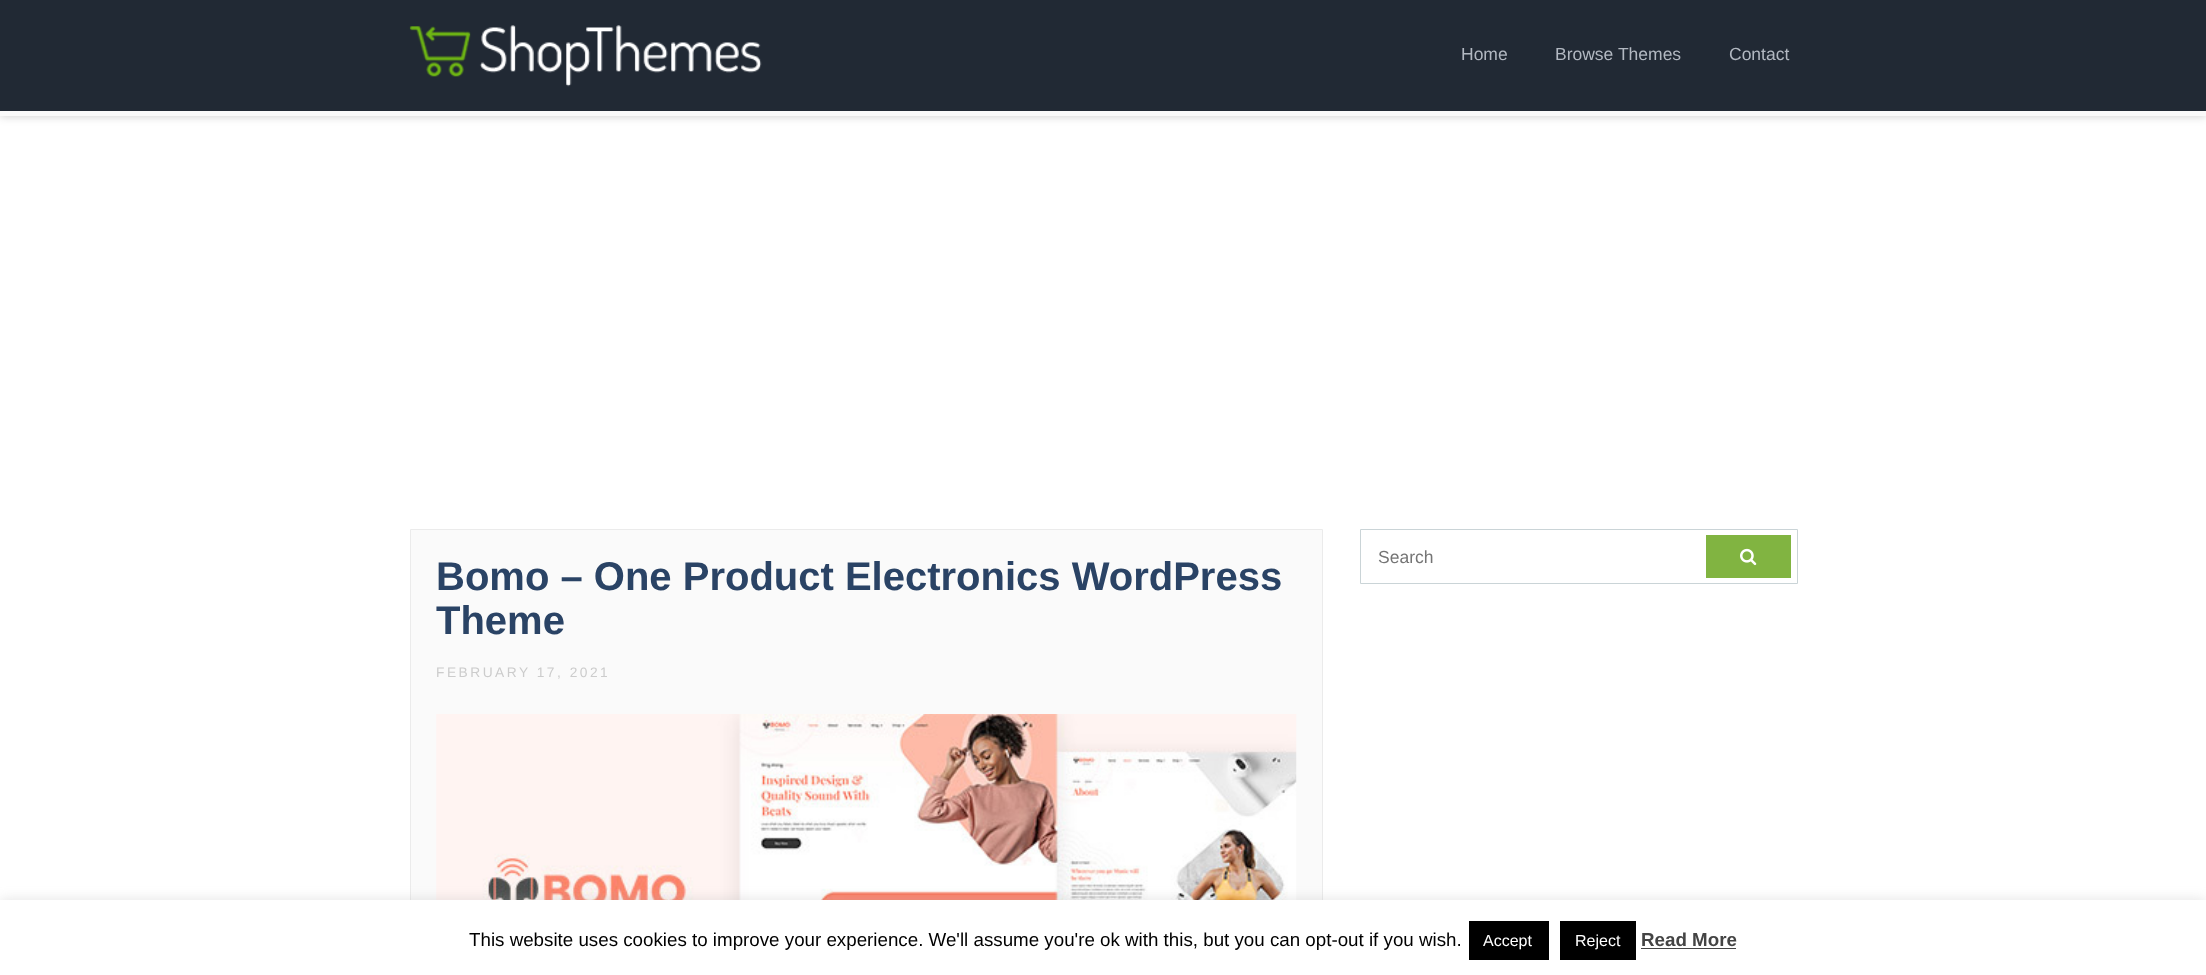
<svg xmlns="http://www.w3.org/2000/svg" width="2206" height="975">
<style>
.a{font:17.5px Liberation Sans;fill:#b2b8c1}
.b{font:17.5px Liberation Sans;fill:#757575}
.c{font:bold 40px Liberation Sans;fill:#2a4365}
.d{font:13.75px Liberation Sans;letter-spacing:2.5px;fill:#ccc}
.e{font:18.75px Liberation Sans;fill:#000}
.f{font:16px Liberation Sans;fill:#fff}
.g{font:bold 18.75px Liberation Sans;fill:#444}
</style>
<rect width="100%" height="100%" fill="#fff"/>
<path fill="#00000033" filter="blur(5px)" d="M0 15h2206v101H0z"/>
<path fill="#212934" d="M0 0h2206v111H0z"/>
<image href="1.png" x="409" y="25" width="353" height="62"/>
<path fill="#fafafa" d="M0 111h2206v5H0z"/>
<path fill="none" stroke="#cad4d7" d="M1360.5 529.5h437v54H1360.5z"/>
<path fill="#81b441" d="M1706 535h85v43H1706z"/>
<image href="2.png" x="1740" y="548" width="17" height="18"/>
<path fill="#fafafa" d="M411 530h911v370H411z"/>
<path fill="none" stroke="#ebebeb" d="M410.5 529.5h912v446H410.5z"/>
<image href="3.png" x="436" y="714" width="861" height="186"/>
<path fill="#acabab4d" filter="blur(6px)" d="M0 899h2206v75H0z"/>
<path fill="#fff" d="M0 900h2206v75H0z"/>
<path fill="#000" d="M1469 921h80v39H1469z"/>
<path fill="#000" d="M1560 921h76v39H1560z"/>
<path fill="#444" d="M1641 948h95v1H1641z"/>
<text class="a" x="1461" y="60">Home</text>
<text class="a" x="1555" y="60">Browse Themes</text>
<text class="a" x="1729" y="60">Contact</text>
<text class="b" x="1378" y="563">Search</text>
<text class="c" x="436" y="590">Bomo – One Product Electronics WordPress</text>
<text class="c" x="436" y="634">Theme</text>
<text class="d" x="436" y="677">FEBRUARY 17, 2021</text>
<text class="e" x="469" y="946">This website uses cookies to improve your experience. We'll assume you're ok with this, but you can opt-out if you wish.</text>
<text class="f" x="1483" y="946">Accept</text>
<text class="f" x="1575" y="946">Reject</text>
<text class="g" x="1641" y="946">Read More</text>
</svg>
